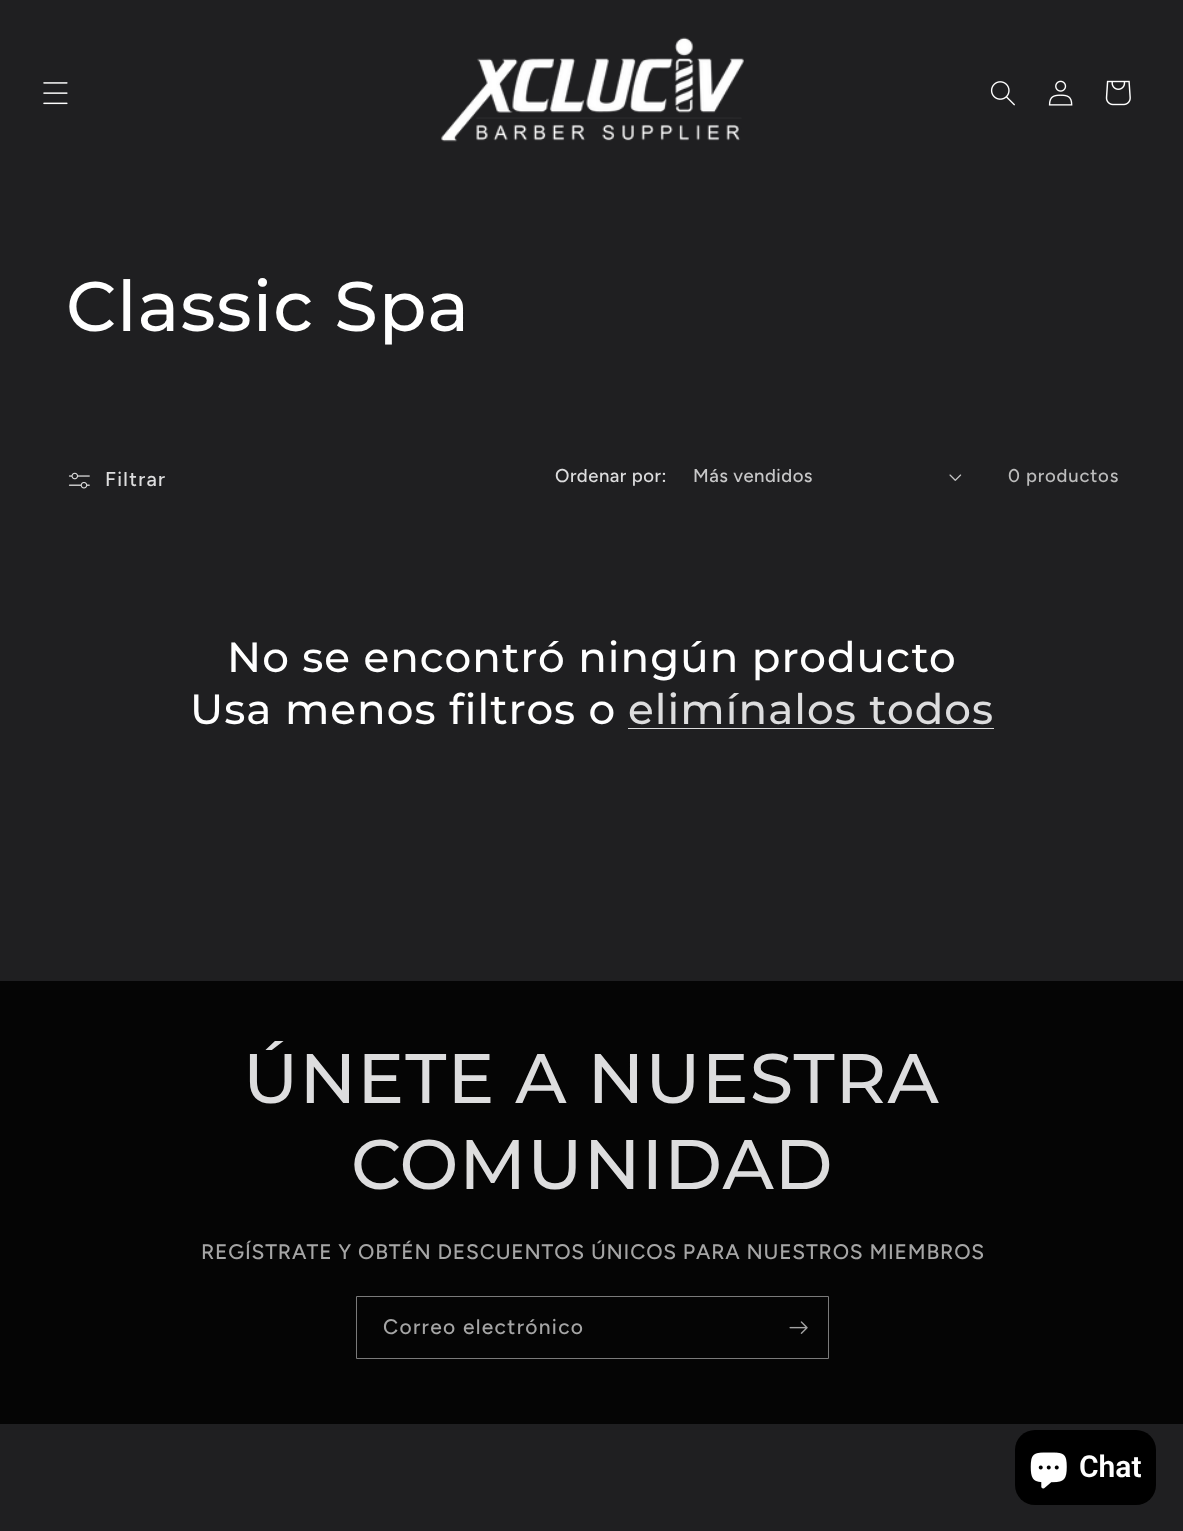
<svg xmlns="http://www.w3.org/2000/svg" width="1183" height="1531">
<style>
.a{font:500 70px Montserrat;letter-spacing:1.05px;fill:#fff}
.b{font:500 20px Figtree;letter-spacing:1.3px;fill:#ddddde}
.c{font:500 18.5px Figtree;letter-spacing:0.5px;fill:#ddddde}
.d{font:500 18.5px Figtree;letter-spacing:0.5px;fill:#c7c7c8}
.e{font:500 18.5px Figtree;letter-spacing:0.8px;fill:#bcbcbc}
.f{font:500 42px Montserrat;letter-spacing:1.05px;fill:#fff}
.g{font:500 42px Montserrat;letter-spacing:1.05px;fill:#ddddde}
.h{font:500 70px Montserrat;letter-spacing:1.05px;fill:#ddddde}
.i{font:500 21px Figtree;letter-spacing:0.8px;fill:#a5a5a5}
.j{font:500 21px Figtree;letter-spacing:1.3px;fill:#a5a5a5}
.k{font:600 30px Roboto;fill:#fff}
</style>
<rect width="100%" height="100%" fill="#1f1f21"/>
<image href="1.png" x="43" y="82" width="25" height="23"/>
<image href="2.png" x="441" y="37" width="303" height="105"/>
<image href="3.png" x="990" y="81" width="25" height="25"/>
<image href="4.png" x="1048" y="80" width="25" height="26"/>
<image href="5.png" x="1105" y="80" width="26" height="26"/>
<image href="6.png" x="68" y="472" width="22" height="17"/>
<image href="7.png" x="949" y="474" width="13" height="7"/>
<path fill="#ddddde" d="M628 728h366v1H628z"/>
<path fill="#050505" d="M0 981h1183v443H0z"/>
<path fill="none" stroke="#7a7a7a" d="M356.5 1296.5h472v62H356.5z"/>
<image href="8.png" x="789" y="1321" width="19" height="13"/>
<rect fill="#000" x="1015" y="1430" width="141" height="75" rx="20"/>
<image href="9.png" x="1030" y="1452" width="37" height="37"/>
<text class="a" x="66" y="331">Classic Spa</text>
<text class="b" x="105" y="486">Filtrar</text>
<text class="c" x="555" y="482">Ordenar por:</text>
<text class="d" x="693" y="482">Más vendidos</text>
<text class="e" x="1008" y="482">0 productos</text>
<text class="f" x="227" y="672">No se encontró ningún producto</text>
<text class="f" x="190" y="724">Usa menos filtros o</text>
<text class="g" x="628" y="724">elimínalos todos</text>
<text class="h" x="243" y="1103">ÚNETE A NUESTRA</text>
<text class="h" x="351" y="1189">COMUNIDAD</text>
<text class="i" x="201" y="1259">REGÍSTRATE Y OBTÉN DESCUENTOS ÚNICOS PARA NUESTROS MIEMBROS</text>
<text class="j" x="383" y="1334">Correo electrónico</text>
<text class="k" x="1079" y="1477">Chat</text>
</svg>
